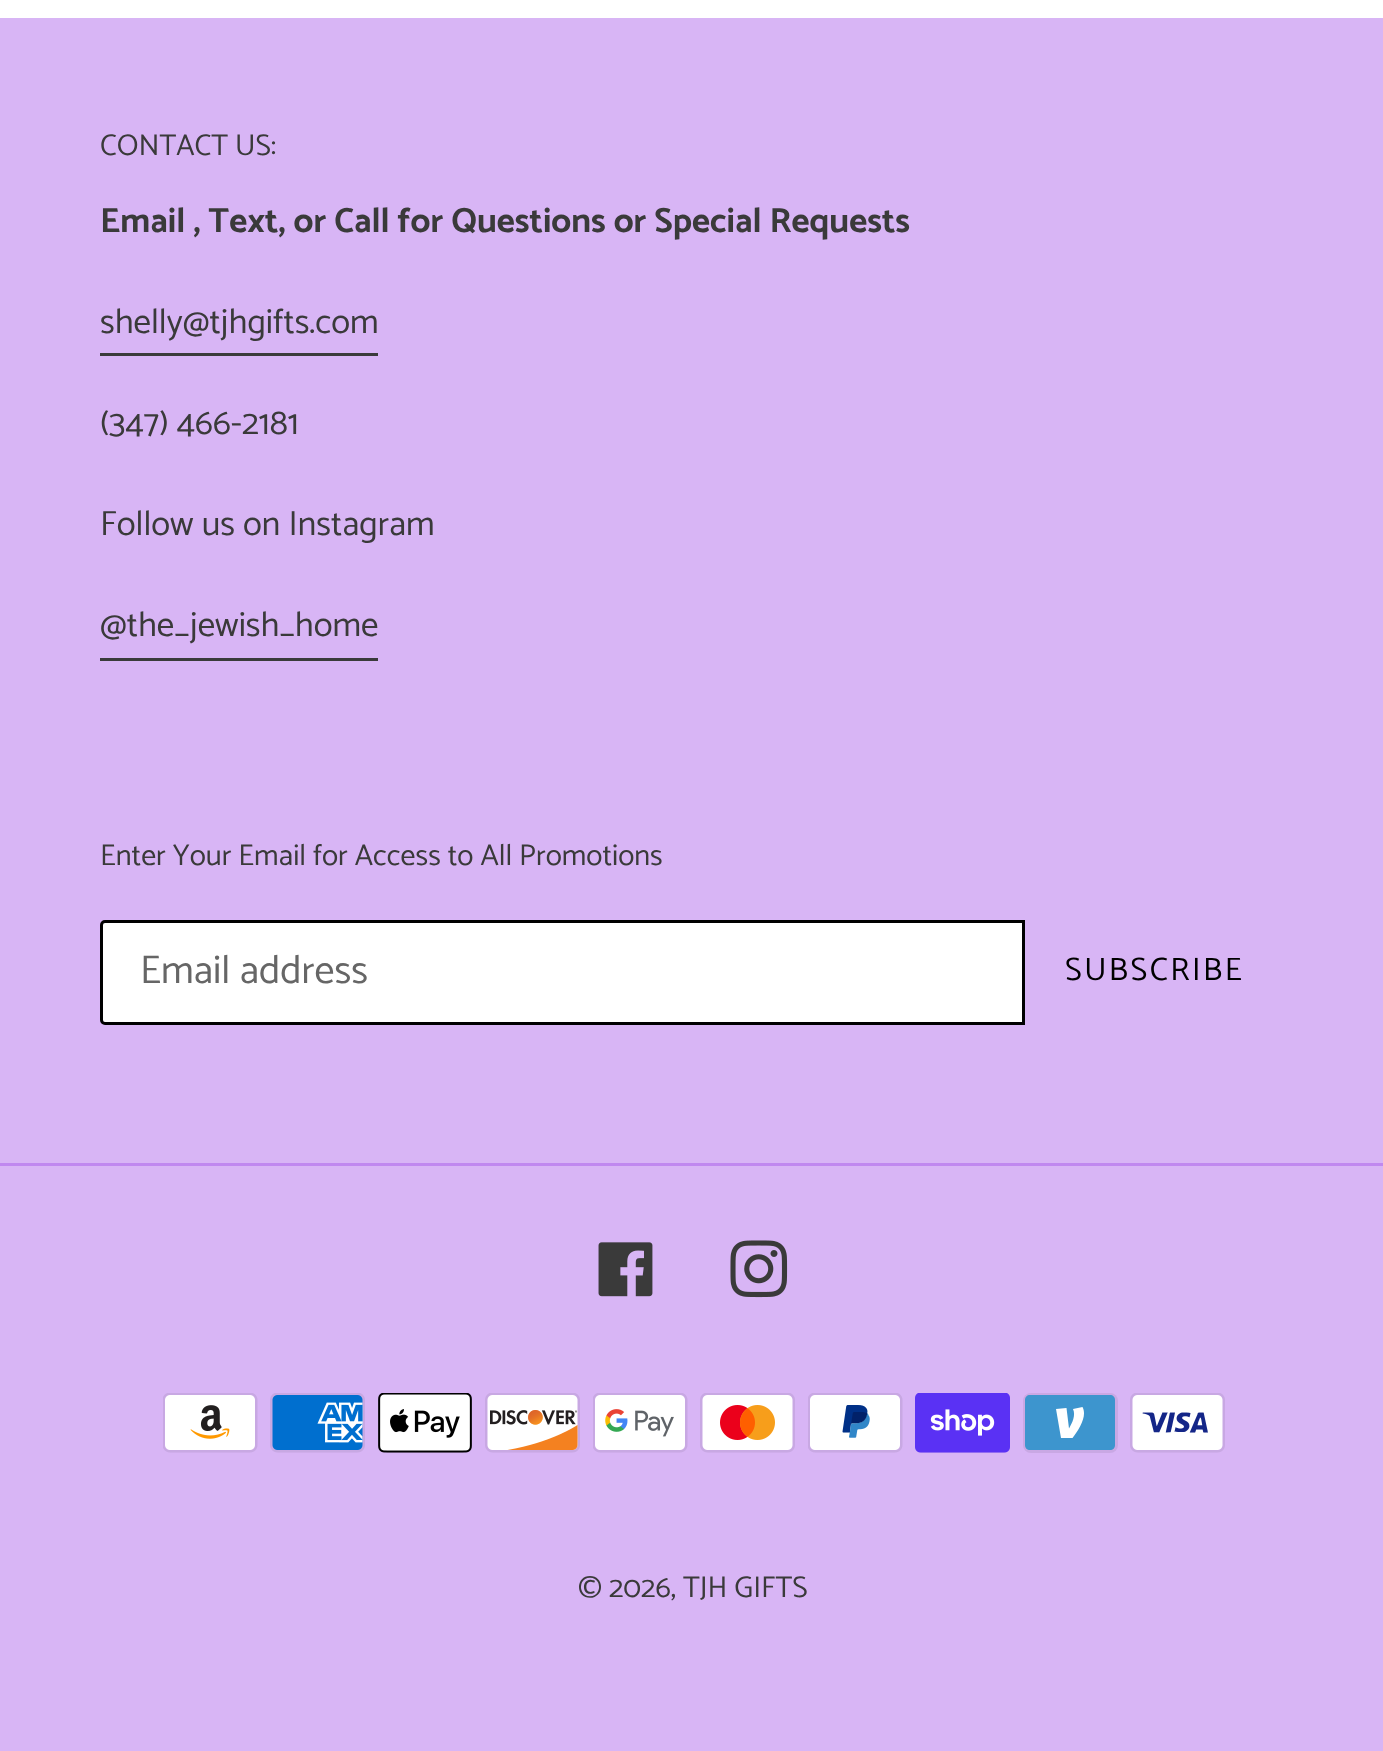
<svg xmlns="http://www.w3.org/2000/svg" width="1383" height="1751">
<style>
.a{font:30px Catamaran;fill:#3a3a3a}
.b{font:bold 35px Catamaran;fill:#3a3a3a}
.c{font:35px Catamaran;fill:#3a3a3a}
.d{font:40px Catamaran;fill:#666}
.e{font:32.5px Catamaran;letter-spacing:2.5px;fill:#000}
</style>
<rect width="100%" height="100%" fill="#fff"/>
<path fill="#d8b5f5" d="M0 18h1383v1733H0z"/>
<path fill="#3a3a3a" d="M100 353h278v3H100z"/>
<path fill="#3a3a3a" d="M100 658h278v3H100z"/>
<path fill="#fff" stroke="#000" stroke-width="3" d="M105 921.5h918.5v102h-918.5c-2 0-3.5-1.5-3.5-3.5v-95c0-2 1.5-3.5 3.5-3.5z"/>
<path fill="#c088ef" d="M0 1163h1383v3H0z"/>
<image href="1.png" x="598" y="1242" width="55" height="55"/>
<image href="2.png" x="730" y="1240" width="58" height="58"/>
<image href="3.png" x="163" y="1393" width="95" height="60"/>
<image href="4.png" x="270" y="1393" width="95" height="60"/>
<image href="5.png" x="378" y="1393" width="94" height="60"/>
<image href="6.png" x="485" y="1393" width="95" height="60"/>
<image href="7.png" x="593" y="1393" width="95" height="60"/>
<image href="8.png" x="700" y="1393" width="95" height="60"/>
<image href="9.png" x="808" y="1393" width="95" height="60"/>
<image href="10.png" x="915" y="1393" width="95" height="60"/>
<rect fill="#c9a8e4" x="1023" y="1393" width="95" height="60" rx="8"/>
<path fill="#3d95ce" fill-rule="evenodd" d="M1110 1395c3 0 5 2 5 5v45c0 3-2 5-5 5h-80c-3 0-5-2-5-5v-45c0-3 2-5 5-5h80"/>
<path fill="#fff" d="M1084 1413.5c0 7.5-6 17.5-11.5 24.5h-11.5l-5-29l10.5-1l2.5 20.5c3-5.5 7-13 4-19.5l9.5-2c1 2 1.5 4 1.5 6.5z"/>
<image href="11.png" x="1130" y="1393" width="95" height="60"/>
<text class="a" x="100" y="155">CONTACT US:</text>
<text class="b" x="100" y="232">Email , Text, or Call for Questions or Special Requests</text>
<text class="c" x="100" y="333">shelly@tjhgifts.com</text>
<text class="c" x="100" y="434">(347) 466-2181</text>
<text class="c" x="100" y="535">Follow us on Instagram</text>
<text class="c" x="100" y="636">@the_jewish_home</text>
<text class="a" x="100" y="865">Enter Your Email for Access to All Promotions</text>
<text class="d" x="140" y="983">Email address</text>
<text class="e" x="1065" y="980">SUBSCRIBE</text>
<text class="a" x="578" y="1597">© 2026, TJH GIFTS</text>
</svg>
